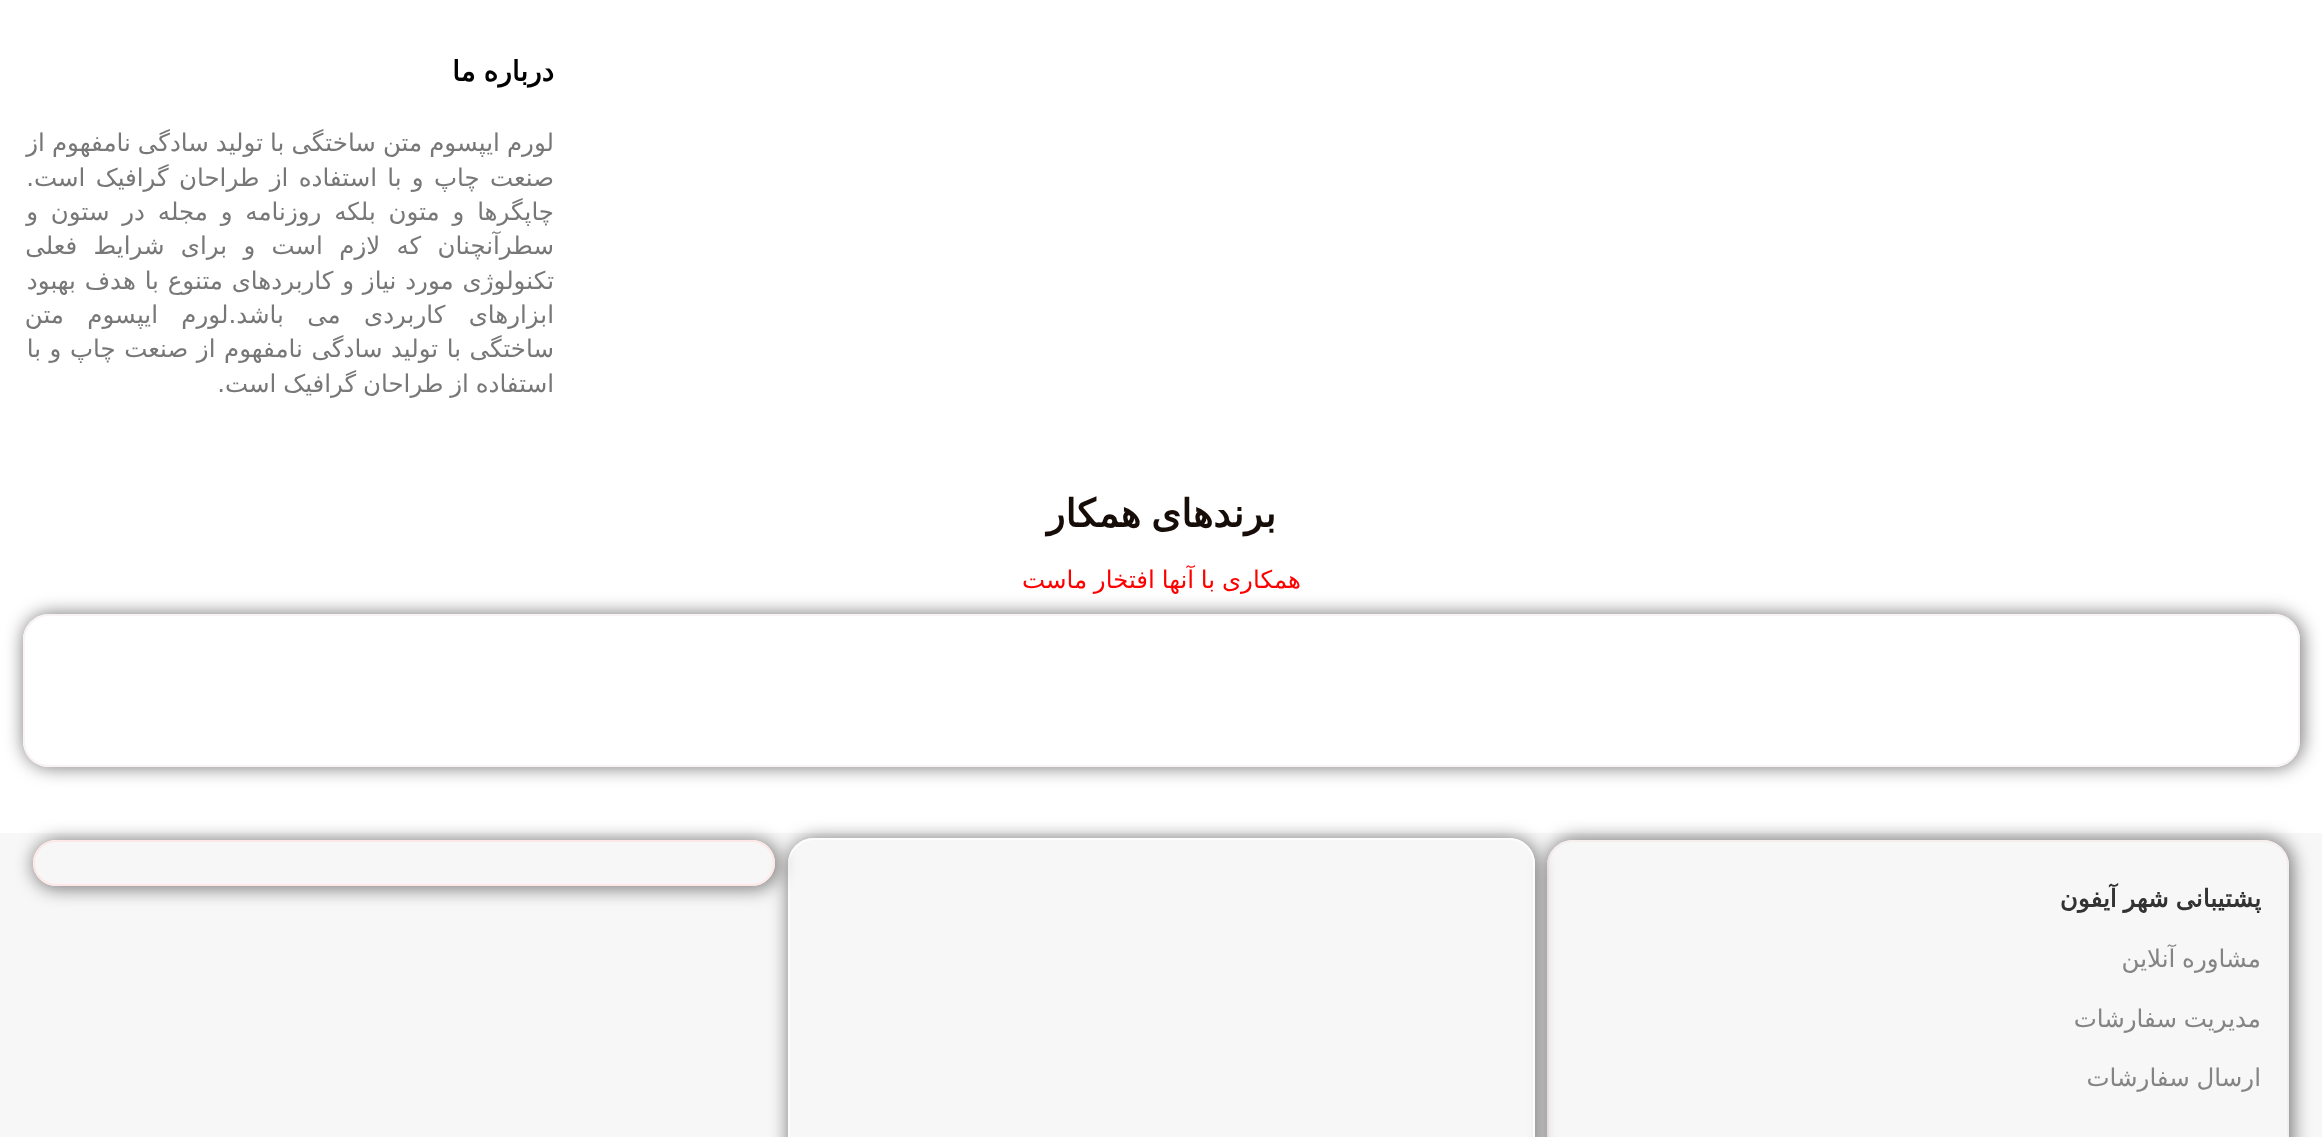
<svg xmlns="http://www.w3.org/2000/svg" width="2322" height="1137">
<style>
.a{font:bold 28px DejaVu Sans;direction:rtl;fill:#000}
.b{font:24.5px DejaVu Sans;direction:rtl;fill:#777}
.c{font:bold 38.5px DejaVu Sans;direction:rtl;fill:#160d08}
.d{font:24.5px DejaVu Sans;direction:rtl;fill:#f00}
.e{font:bold 24.5px DejaVu Sans;direction:rtl;fill:#333}
.f{font:24.5px DejaVu Sans;direction:rtl;fill:#848484}
</style>
<defs>
<clipPath id="clip1"><path d="M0 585h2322v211h-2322zm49 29h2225c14.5 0 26 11.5 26 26v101c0 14.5-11.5 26-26 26h-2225c-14.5 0-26-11.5-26-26v-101c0-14.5 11.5-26 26-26z" clip-rule="evenodd"/></clipPath>
<clipPath id="clip2"><path d="M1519 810h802v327h-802zm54 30h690c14.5 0 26 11.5 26 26v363c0 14.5-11.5 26-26 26h-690c-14.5 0-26-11.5-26-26v-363c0-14.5 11.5-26 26-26z" clip-rule="evenodd"/></clipPath>
<clipPath id="clip3"><path d="M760 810h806v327h-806zm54 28h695c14.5 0 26 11.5 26 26v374c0 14.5-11.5 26-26 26h-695c-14.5 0-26-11.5-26-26v-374c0-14.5 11.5-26 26-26z" clip-rule="evenodd"/></clipPath>
<clipPath id="clip4"><path d="M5 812h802v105h-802zm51 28h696c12.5 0 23 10.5 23 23c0 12.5-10.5 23-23 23h-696c-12.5 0-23-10.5-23-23c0-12.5 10.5-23 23-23z" clip-rule="evenodd"/></clipPath>
</defs>
<rect width="100%" height="100%" fill="#fff"/>
<g clip-path="url(#clip1)">
<rect fill="#00000080" filter="blur(9px)" x="23" y="613" width="2280" height="155" rx="28"/>
</g>
<rect fill="none" stroke="#f9f3f3" stroke-width="2" x="24" y="615" width="2275" height="151" rx="25"/>
<path fill="#f7f7f7" d="M0 833h2322v304H0z"/>
<g clip-path="url(#clip2)">
<rect fill="#00000080" filter="blur(9px)" x="1547" y="838" width="746" height="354" rx="28"/>
</g>
<rect fill="none" stroke="#f6eded" stroke-width="2" x="1548" y="841" width="740" height="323" rx="25"/>
<g clip-path="url(#clip3)">
<rect fill="#00000080" filter="blur(9px)" x="788" y="838" width="750" height="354" rx="28"/>
</g>
<rect fill="none" stroke="#fffcfc" stroke-width="2" x="789" y="839" width="745" height="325" rx="25"/>
<g clip-path="url(#clip4)">
<rect fill="#00000080" filter="blur(9px)" x="33" y="840" width="746" height="49" rx="24.5"/>
</g>
<rect fill="none" stroke="#fee7e7" stroke-width="2" x="34" y="841" width="740" height="44" rx="22"/>
<text class="a" x="554" y="81" word-spacing="-1">درباره ما</text>
<text class="b" x="554" y="151" word-spacing="-0.75">لورم ایپسوم متن ساختگی با تولید سادگی نامفهوم از</text>
<text class="b" x="554" y="186" word-spacing="2.5">صنعت چاپ و با استفاده از طراحان گرافیک است.</text>
<text class="b" x="554" y="220" word-spacing="5">چاپگرها و متون بلکه روزنامه و مجله در ستون و</text>
<text class="b" x="554" y="254" word-spacing="8.5">سطرآنچنان که لازم است و برای شرایط فعلی</text>
<text class="b" x="554" y="289" word-spacing="1">تکنولوژی مورد نیاز و کاربردهای متنوع با هدف بهبود</text>
<text class="b" x="554" y="323" word-spacing="15.5">ابزارهای کاربردی می باشد.لورم ایپسوم متن</text>
<text class="b" x="554" y="357" word-spacing="0.75">ساختگی با تولید سادگی نامفهوم از صنعت چاپ و با</text>
<text class="b" x="554" y="392" word-spacing="-1">استفاده از طراحان گرافیک است.</text>
<text class="c" x="1276" y="527" word-spacing="-2">برندهای همکار</text>
<text class="d" x="1301" y="588" word-spacing="-1">همکاری با آنها افتخار ماست</text>
<text class="e" x="2261" y="907" word-spacing="-1">پشتیبانی شهر آیفون</text>
<text class="f" x="2261" y="967" word-spacing="-1">مشاوره آنلاین</text>
<text class="f" x="2261" y="1027" word-spacing="-1">مدیریت سفارشات</text>
<text class="f" x="2261" y="1086" word-spacing="-1">ارسال سفارشات</text>
</svg>
